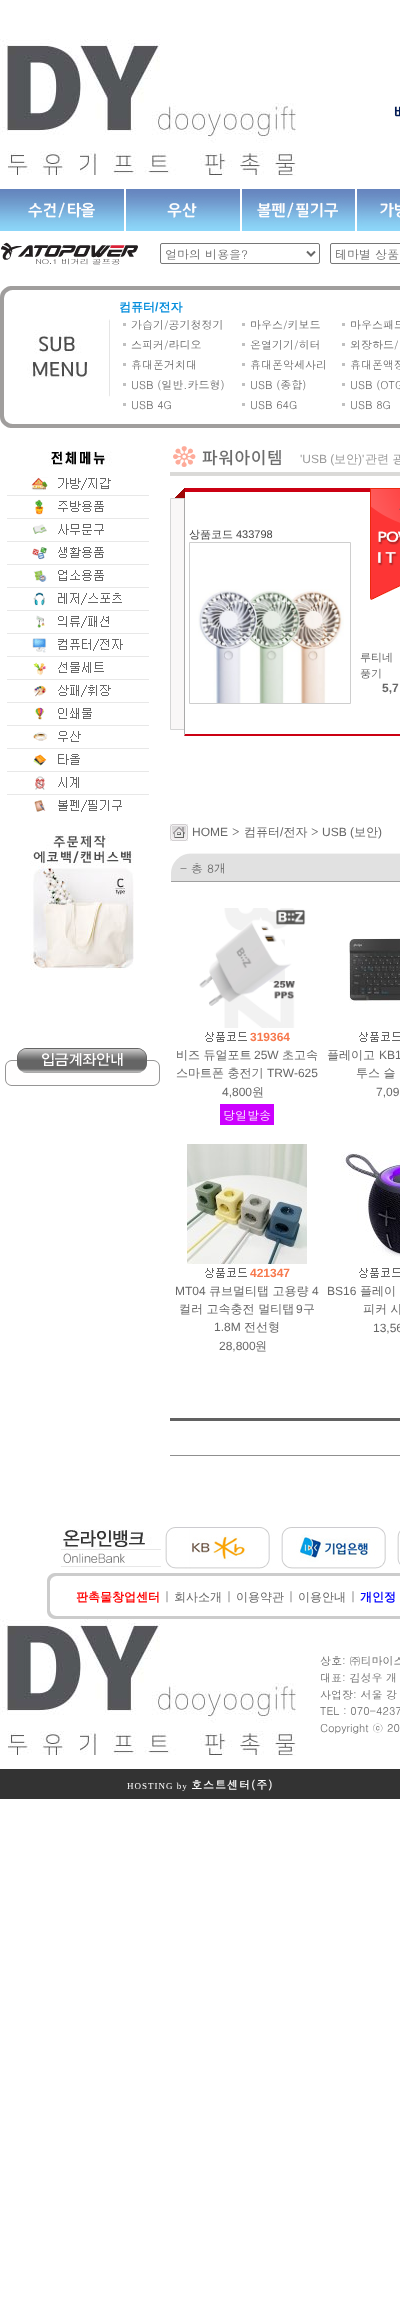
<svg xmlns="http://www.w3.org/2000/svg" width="400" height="2299">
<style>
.a{font:12px Dotum;fill:#676767}
.b{font:bold 12px WenQuanYi Zen Hei;fill:#048ddc}
.c{font:bold 12px Liberation Sans;fill:#048ddc}
.d{font:11px Dotum;fill:#676767}
.e{font:12px Liberation Sans;fill:#9b9b9b}
.f{font:500 12px WenQuanYi Zen Hei;fill:#9b9b9b}
.g{font:500 11px WenQuanYi Zen Hei;fill:#444}
.h{font:11px Liberation Sans;fill:#444}
.i{font:500 11px WenQuanYi Zen Hei;fill:#676767}
.j{font:bold 12px Liberation Sans;fill:#676767}
.k{font:12px Liberation Sans;fill:#676767}
.l{font:500 12px WenQuanYi Zen Hei;fill:#676767}
.m{font:bold 12px Liberation Sans;fill:#f7794d}
.n{font:12px Dotum;fill:#fff}
.o{font:bold 12px WenQuanYi Zen Hei;fill:#f00}
.p{font:bold 12px WenQuanYi Zen Hei;fill:#00f}
.q{font:9px Liberation Serif;letter-spacing:1px;fill:#fff}
.r{font:bold 11px Dotum;letter-spacing:1px;fill:#fff}
</style>
<rect width="100%" height="100%" fill="#fff"/>
<image href="1.png" x="0" y="39" width="296" height="137"/>
<image href="2.png" x="394" y="106" width="6" height="11"/>
<image href="3.png" x="0" y="189" width="124" height="42"/>
<image href="4.png" x="126" y="189" width="114" height="42"/>
<image href="5.png" x="242" y="189" width="113" height="42"/>
<image href="6.png" x="357" y="189" width="43" height="42"/>
<image href="7.png" x="1" y="242" width="137" height="23"/>
<rect fill="none" stroke="#767676" x="160.5" y="243.5" width="159" height="20" rx="1.5"/>
<path fill="none" stroke="#676767" stroke-width="2" d="M307 251.5l4 4l4-4"/>
<rect fill="none" stroke="#767676" x="330.5" y="243.5" width="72" height="20" rx="1.5"/>
<image href="8.png" x="0" y="286" width="400" height="12"/>
<path fill="#a09e9d" d="M0 298h4v118H0z"/>
<image href="9.png" x="27" y="319" width="83" height="78"/>
<path fill="#c0c0c0" d="M123 323h3v3H123z"/>
<path fill="#c0c0c0" d="M242 323h3v3H242z"/>
<path fill="#c0c0c0" d="M342 323h3v3H342z"/>
<path fill="#c0c0c0" d="M123 343h3v3H123z"/>
<path fill="#c0c0c0" d="M242 343h3v3H242z"/>
<path fill="#c0c0c0" d="M342 343h3v3H342z"/>
<path fill="#c0c0c0" d="M123 363h3v3H123z"/>
<path fill="#c0c0c0" d="M242 363h3v3H242z"/>
<path fill="#c0c0c0" d="M342 363h3v3H342z"/>
<path fill="#c0c0c0" d="M123 383h3v3H123z"/>
<path fill="#c0c0c0" d="M242 383h3v3H242z"/>
<path fill="#c0c0c0" d="M342 383h3v3H342z"/>
<path fill="#c0c0c0" d="M123 403h3v3H123z"/>
<path fill="#c0c0c0" d="M242 403h3v3H242z"/>
<path fill="#c0c0c0" d="M342 403h3v3H342z"/>
<image href="10.png" x="0" y="416" width="400" height="12"/>
<image href="11.png" x="48" y="451" width="64" height="16"/>
<image href="12.png" x="7" y="477" width="142" height="19"/>
<image href="13.png" x="7" y="499" width="142" height="20"/>
<image href="14.png" x="7" y="524" width="142" height="18"/>
<image href="15.png" x="7" y="547" width="142" height="18"/>
<image href="16.png" x="7" y="570" width="142" height="18"/>
<image href="17.png" x="7" y="592" width="142" height="19"/>
<image href="18.png" x="7" y="615" width="142" height="19"/>
<image href="19.png" x="7" y="638" width="142" height="19"/>
<image href="20.png" x="7" y="662" width="142" height="18"/>
<image href="21.png" x="7" y="685" width="142" height="18"/>
<image href="22.png" x="7" y="707" width="142" height="19"/>
<image href="23.png" x="7" y="731" width="142" height="18"/>
<image href="24.png" x="7" y="754" width="142" height="18"/>
<image href="25.png" x="7" y="776" width="142" height="19"/>
<image href="26.png" x="34" y="800" width="88" height="12"/>
<image href="27.png" x="30" y="834" width="104" height="136"/>
<image href="28.png" x="5" y="1048" width="155" height="31"/>
<image href="29.png" x="5" y="1079" width="155" height="7"/>
<image href="30.png" x="170" y="446" width="230" height="30"/>
<path fill="none" stroke="#d5d5d5" d="M170.5 498.5h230v231H170.5z"/>
<path fill="#f9f7f7" d="M171 499h13v230H171z"/>
<path fill="#cb0013" d="M184 488h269l-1 4h-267z"/>
<path fill="#cb0013" d="M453 736h-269l1-2h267z"/>
<path fill="#aaa" d="M184 736v-248l1 4v242z"/>
<image href="31.png" x="175" y="488" width="10" height="10"/>
<path fill="#fff" d="M185 498h215v232H185z"/>
<image href="32.png" x="370" y="488" width="30" height="112"/>
<path fill="none" stroke="#cecece" d="M189.5 542.5h161v161H189.5z"/>
<image href="33.png" x="198" y="589" width="146" height="114"/>
<image href="34.png" x="170" y="824" width="18" height="17"/>
<image href="35.png" x="171" y="853" width="229" height="29"/>
<image href="36.png" x="199" y="908" width="107" height="120"/>
<image href="37.png" x="205" y="1032" width="42" height="10"/>
<path fill="#c0f" d="M220 1104h54v21H220z"/>
<image href="38.png" x="349" y="938" width="51" height="66"/>
<image href="39.png" x="359" y="1032" width="41" height="10"/>
<image href="40.png" x="187" y="1144" width="120" height="120"/>
<image href="37.png" x="205" y="1268" width="42" height="10"/>
<image href="41.png" x="341" y="1152" width="59" height="105"/>
<image href="39.png" x="359" y="1268" width="41" height="10"/>
<image href="42.png" x="170" y="1418" width="230" height="38"/>
<image href="43.png" x="60" y="1527" width="340" height="42"/>
<image href="44.png" x="47" y="1573" width="353" height="8"/>
<path fill="#ccc" d="M47 1581h3v30H47z"/>
<image href="45.png" x="47" y="1611" width="353" height="8"/>
<image href="1.png" x="0" y="1619" width="296" height="137"/>
<path fill="#333" d="M0 1769h400v30H0z"/>
<text class="a" x="165" y="259">얼마의 비용을?</text>
<text class="a" x="335" y="259">테마별 상품</text>
<text class="b" x="119" y="311">컴퓨터 전자</text>
<text class="c" x="155" y="311">/</text>
<text class="d" x="131" y="329">가습기/공기청정기</text>
<text class="d" x="250" y="329">마우스/키보드</text>
<text class="d" x="350" y="329">마우스패드</text>
<text class="d" x="131" y="349">스피커/라디오</text>
<text class="d" x="250" y="349">온열기기/히터</text>
<text class="d" x="350" y="349">외장하드/</text>
<text class="d" x="131" y="369">휴대폰거치대</text>
<text class="d" x="250" y="369">휴대폰악세사리</text>
<text class="d" x="350" y="369">휴대폰액정</text>
<text class="d" x="131" y="389">USB (일반.카드형)</text>
<text class="d" x="250" y="389">USB (종합)</text>
<text class="d" x="350" y="389">USB (OTG</text>
<text class="d" x="131" y="409">USB 4G</text>
<text class="d" x="250" y="409">USB 64G</text>
<text class="d" x="350" y="409">USB 8G</text>
<text class="e" x="300" y="463">'USB (</text>
<text class="f" x="334" y="463">보안</text>
<text class="e" x="358" y="463">)'</text>
<text class="f" x="365" y="463">관련 광</text>
<text class="g" x="189" y="538">상품코드</text>
<text class="h" x="236" y="538">433798</text>
<text class="i" x="360" y="661">루티네</text>
<text class="i" x="360" y="677">풍기</text>
<text class="j" x="382" y="692">5,7</text>
<text class="k" x="192" y="836">HOME</text>
<text class="l" x="244" y="836">컴퓨터 전자</text>
<text class="a" x="232" y="836">&gt;</text>
<text class="k" x="280" y="836">/</text>
<text class="a" x="311" y="836">&gt;</text>
<text class="k" x="322" y="836">USB (</text>
<text class="l" x="354" y="836">보안</text>
<text class="k" x="378" y="836">)</text>
<text class="a" x="180" y="873">- 총 8개</text>
<text class="m" x="250" y="1041">319364</text>
<text class="l" x="176" y="1059">비즈 듀얼포트</text>
<text class="k" x="254" y="1059">25W</text>
<text class="l" x="282" y="1059">초고속</text>
<text class="l" x="176" y="1077">스마트폰 충전기</text>
<text class="k" x="267" y="1077">TRW-625</text>
<text class="k" x="222" y="1096">4,800</text>
<text class="l" x="252" y="1096">원</text>
<text class="n" x="223" y="1120">당일발송</text>
<text class="l" x="327" y="1059">플레이고</text>
<text class="k" x="379" y="1059">KB1</text>
<text class="l" x="356" y="1077">투스 슬</text>
<text class="k" x="376" y="1096">7,09</text>
<text class="m" x="250" y="1277">421347</text>
<text class="k" x="175" y="1295">MT04</text>
<text class="l" x="209" y="1295">큐브멀티탭 고용량</text>
<text class="k" x="312" y="1295">4</text>
<text class="l" x="179" y="1313">컬러 고속충전 멀티탭</text>
<text class="k" x="296" y="1313">9</text>
<text class="l" x="303" y="1313">구</text>
<text class="k" x="214" y="1331">1.8M</text>
<text class="l" x="244" y="1331">전선형</text>
<text class="k" x="219" y="1350">28,800</text>
<text class="l" x="255" y="1350">원</text>
<text class="k" x="327" y="1295">BS16</text>
<text class="l" x="360" y="1295">플레이</text>
<text class="l" x="363" y="1313">피커 사</text>
<text class="k" x="373" y="1332">13,56</text>
<text class="o" x="76" y="1601">판촉물창업센터</text>
<text class="a" x="164" y="1601">|</text>
<text class="l" x="174" y="1601">회사소개</text>
<text class="a" x="226" y="1601">|</text>
<text class="l" x="236" y="1601">이용약관</text>
<text class="a" x="288" y="1601">|</text>
<text class="l" x="298" y="1601">이용안내</text>
<text class="a" x="350" y="1601">|</text>
<text class="p" x="360" y="1601">개인정</text>
<text class="d" x="320" y="1665">상호: ㈜티마이스</text>
<text class="d" x="320" y="1682">대표: 김성우 개</text>
<text class="d" x="320" y="1699">사업장: 서울 강</text>
<text class="d" x="320" y="1715">TEL : 070-4237</text>
<text class="d" x="320" y="1732">Copyright ⓒ 20</text>
<text class="q" x="127" y="1789">HOSTING by</text>
<text class="r" x="191" y="1789">호스트센터(주)</text>
</svg>
